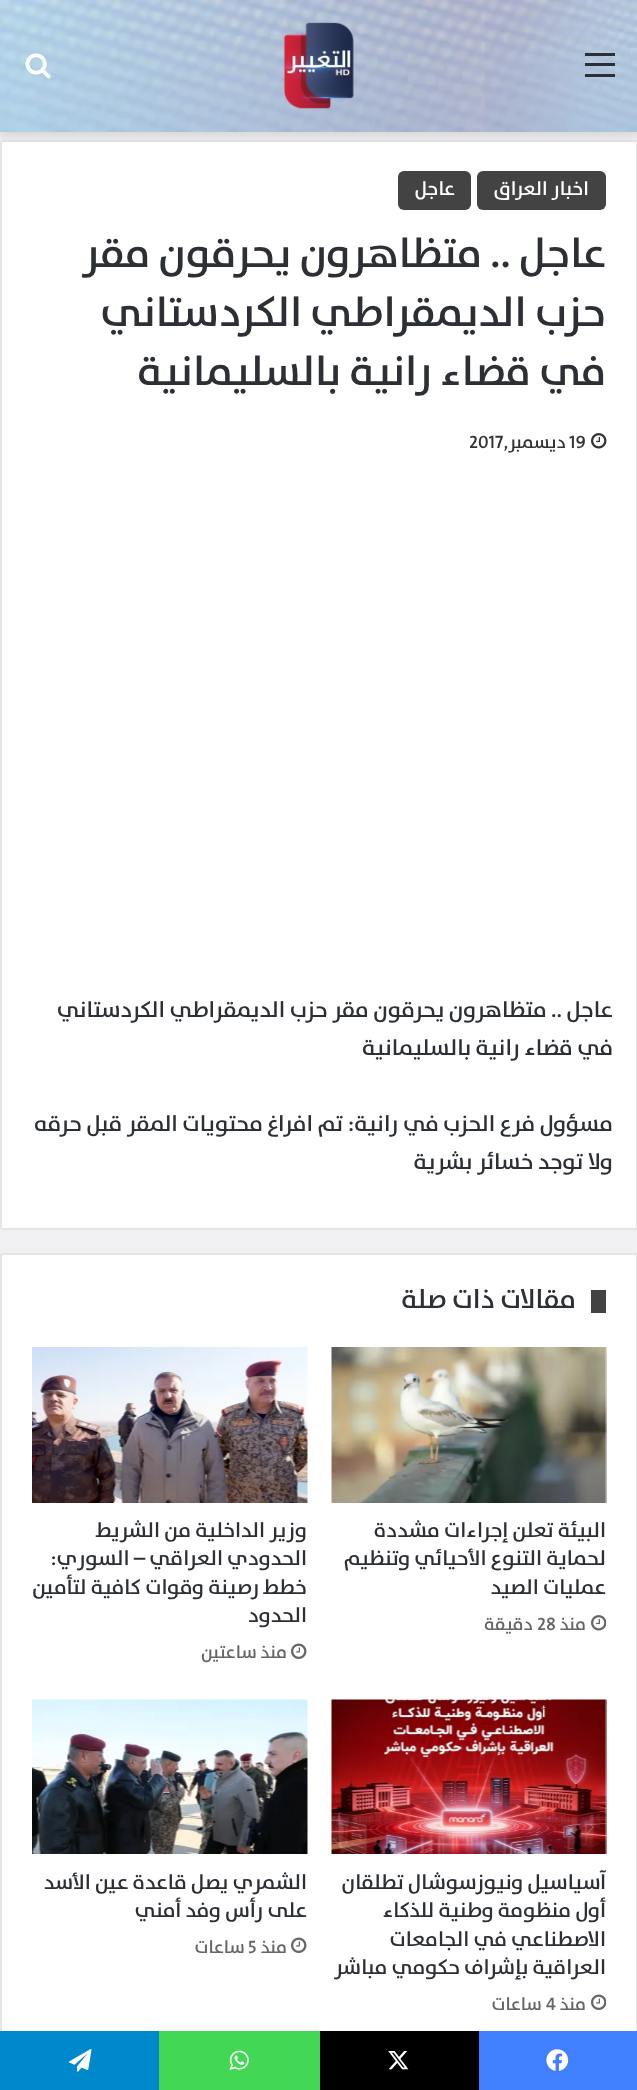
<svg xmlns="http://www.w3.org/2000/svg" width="637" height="2090">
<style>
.a{font:600 19.5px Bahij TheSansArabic;direction:rtl;fill:#fff}
.b{font:600 42px Bahij TheSansArabic;direction:rtl;fill:#2c2f34}
.c{font:600 18px Bahij TheSansArabic;fill:#333}
.d{font:600 18px Bahij TheSansArabic;direction:rtl;fill:#333}
.e{font:600 22.5px Bahij TheSansArabic;direction:rtl;fill:#2c2f34}
.f{font:600 27px Bahij TheSansArabic;direction:rtl;fill:#2c2f34}
.g{font:600 21px Bahij TheSansArabic;direction:rtl;fill:#2c2f34}
.h{font:600 18px Bahij TheSansArabic;direction:rtl;fill:#666}
.i{font:600 18px Bahij TheSansArabic;fill:#666}
</style>
<rect width="100%" height="100%" fill="#f0f0f2"/>
<rect fill="#fff" y="140" width="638" height="1090" rx="3"/>
<rect fill="none" stroke="#0000001a" stroke-width="2" x="1" y="141" width="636" height="1088" rx="2"/>
<path fill="#0000001a" filter="blur(5px)" d="M0 5h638v132H0z"/>
<image href="1.png" x="0" y="0" width="637" height="132"/>
<path fill="#2c2f34" d="M585 63h30v3H585z"/>
<path fill="#2c2f34" d="M585 53h30v3H585z"/>
<path fill="#2c2f34" d="M585 74h30v3H585z"/>
<image href="2.png" x="282" y="22" width="72" height="87"/>
<image href="3.png" x="25" y="53" width="26" height="26"/>
<rect fill="#434343" x="477" y="171" width="129" height="39" rx="6"/>
<rect fill="#434343" x="398" y="171" width="73" height="39" rx="6"/>
<image href="4.png" x="591" y="433" width="16" height="16"/>
<rect fill="#fff" y="1253" width="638" height="799" rx="3"/>
<rect fill="none" stroke="#0000001a" stroke-width="2" x="1" y="1254" width="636" height="797" rx="2"/>
<path fill="#434343" d="M591 1290h15v23H591z"/>
<image href="5.png" x="331" y="1347" width="276" height="156"/>
<image href="6.png" x="591" y="1615" width="15" height="16"/>
<image href="7.png" x="32" y="1347" width="276" height="156"/>
<image href="8.png" x="291" y="1643" width="16" height="16"/>
<image href="9.png" x="331" y="1699" width="276" height="155"/>
<image href="10.png" x="591" y="1994" width="15" height="16"/>
<image href="11.png" x="32" y="1699" width="276" height="155"/>
<image href="8.png" x="291" y="1937" width="16" height="16"/>
<path fill="#4080ff" d="M479 2031h158v59H479z"/>
<image href="12.png" x="546" y="2049" width="23" height="22"/>
<path fill="#000" d="M320 2031h159v59H320z"/>
<image href="13.png" x="388" y="2051" width="21" height="19"/>
<path fill="#43d854" d="M159 2031h161v59H159z"/>
<image href="14.png" x="229" y="2050" width="20" height="20"/>
<path fill="#08c" d="M0 2031h159v59H0z"/>
<image href="15.png" x="69" y="2049" width="23" height="23"/>
<text class="a" x="589" y="195">اخبار العراق</text>
<text class="a" x="455" y="195">عاجل</text>
<text class="b" x="606" y="267">عاجل .. متظاهرون يحرقون مقر</text>
<text class="b" x="606" y="326">حزب الديمقراطي الكردستاني</text>
<text class="b" x="606" y="385">في قضاء رانية بالسليمانية</text>
<text class="c" x="569" y="448">19</text>
<text class="d" x="566" y="448">ديسمبر,</text>
<text class="c" x="469" y="448">2017</text>
<text class="e" x="613" y="1017">عاجل .. متظاهرون يحرقون مقر حزب الديمقراطي الكردستاني</text>
<text class="e" x="613" y="1055">في قضاء رانية بالسليمانية</text>
<text class="e" x="613" y="1131">مسؤول فرع الحزب في رانية: تم افراغ محتويات المقر قبل حرقه</text>
<text class="e" x="613" y="1169">ولا توجد خسائر بشرية</text>
<text class="f" x="576" y="1308">مقالات ذات صلة</text>
<text class="g" x="606" y="1537">البيئة تعلن إجراءات مشددة</text>
<text class="g" x="606" y="1565">لحماية التنوع الأحيائي وتنظيم</text>
<text class="g" x="606" y="1594">عمليات الصيد</text>
<text class="h" x="586" y="1630">منذ</text>
<text class="i" x="537" y="1630">28</text>
<text class="h" x="533" y="1630">دقيقة</text>
<text class="g" x="307" y="1537">وزير الداخلية من الشريط</text>
<text class="g" x="307" y="1565">الحدودي العراقي – السوري:</text>
<text class="g" x="307" y="1594">خطط رصينة وقوات كافية لتأمين</text>
<text class="g" x="307" y="1622">الحدود</text>
<text class="h" x="287" y="1658">منذ ساعتين</text>
<text class="g" x="606" y="1889">آسياسيل ونيوزسوشال تطلقان</text>
<text class="g" x="606" y="1917">أول منظومة وطنية للذكاء</text>
<text class="g" x="606" y="1946">الاصطناعي في الجامعات</text>
<text class="g" x="606" y="1974">العراقية بإشراف حكومي مباشر</text>
<text class="h" x="586" y="2010">منذ</text>
<text class="i" x="546" y="2010">4</text>
<text class="h" x="542" y="2010">ساعات</text>
<text class="g" x="307" y="1889">الشمري يصل قاعدة عين الأسد</text>
<text class="g" x="307" y="1917">على رأس وفد أمني</text>
<text class="h" x="287" y="1953">منذ</text>
<text class="i" x="248" y="1953">5</text>
<text class="h" x="245" y="1953">ساعات</text>
</svg>
